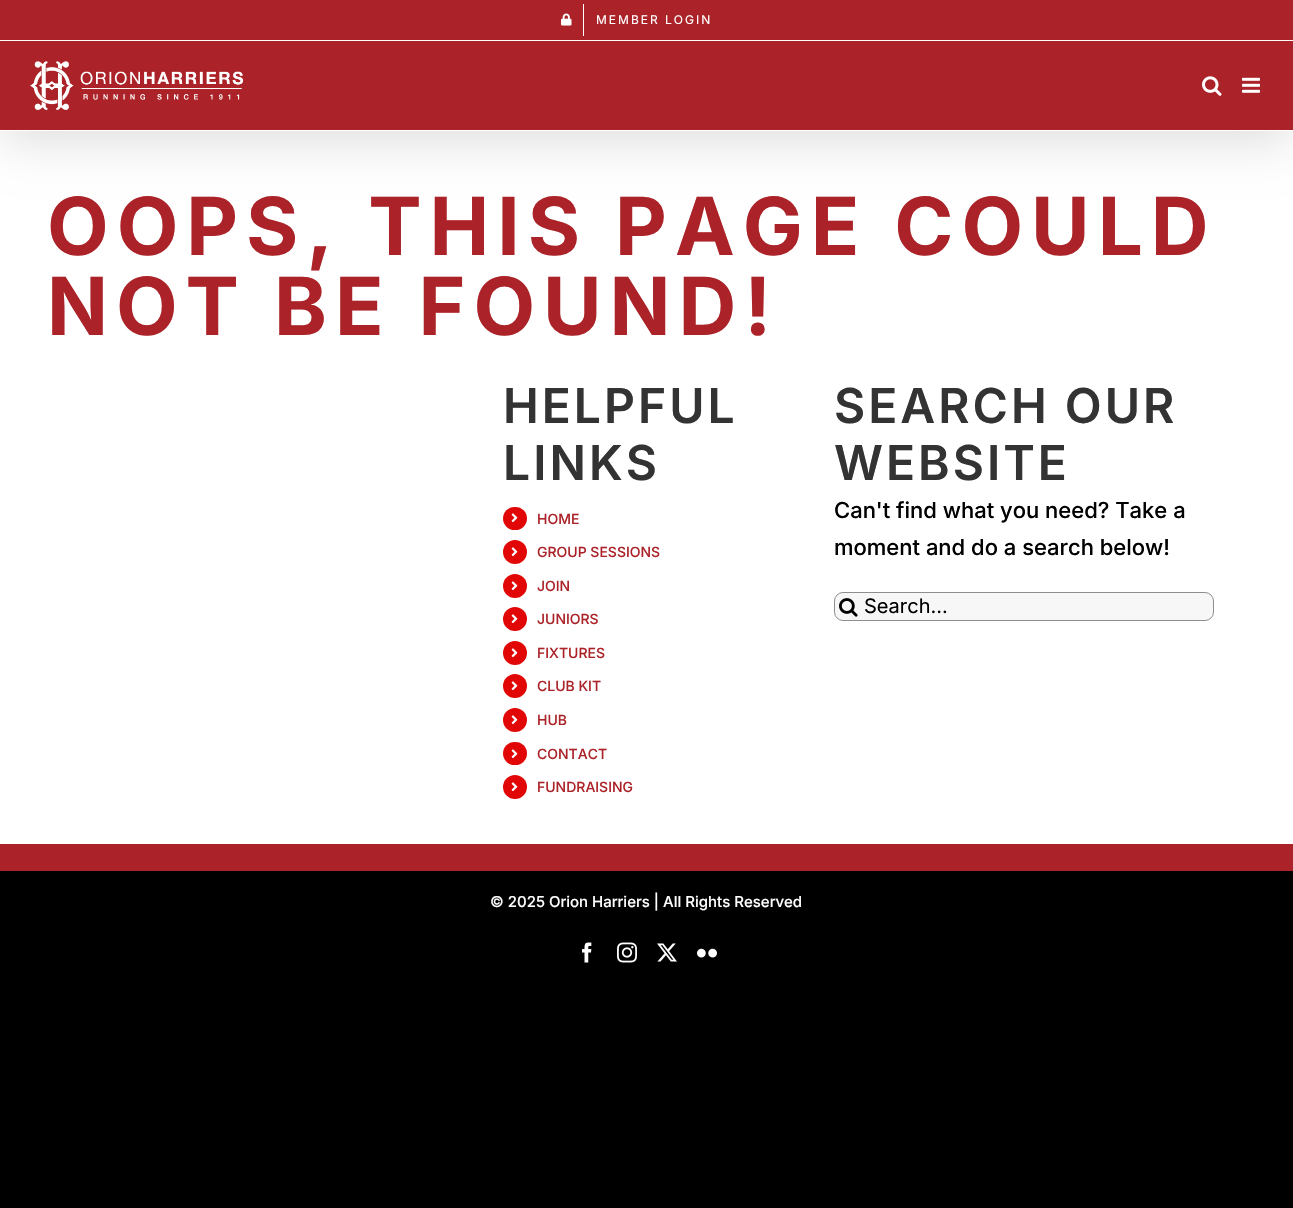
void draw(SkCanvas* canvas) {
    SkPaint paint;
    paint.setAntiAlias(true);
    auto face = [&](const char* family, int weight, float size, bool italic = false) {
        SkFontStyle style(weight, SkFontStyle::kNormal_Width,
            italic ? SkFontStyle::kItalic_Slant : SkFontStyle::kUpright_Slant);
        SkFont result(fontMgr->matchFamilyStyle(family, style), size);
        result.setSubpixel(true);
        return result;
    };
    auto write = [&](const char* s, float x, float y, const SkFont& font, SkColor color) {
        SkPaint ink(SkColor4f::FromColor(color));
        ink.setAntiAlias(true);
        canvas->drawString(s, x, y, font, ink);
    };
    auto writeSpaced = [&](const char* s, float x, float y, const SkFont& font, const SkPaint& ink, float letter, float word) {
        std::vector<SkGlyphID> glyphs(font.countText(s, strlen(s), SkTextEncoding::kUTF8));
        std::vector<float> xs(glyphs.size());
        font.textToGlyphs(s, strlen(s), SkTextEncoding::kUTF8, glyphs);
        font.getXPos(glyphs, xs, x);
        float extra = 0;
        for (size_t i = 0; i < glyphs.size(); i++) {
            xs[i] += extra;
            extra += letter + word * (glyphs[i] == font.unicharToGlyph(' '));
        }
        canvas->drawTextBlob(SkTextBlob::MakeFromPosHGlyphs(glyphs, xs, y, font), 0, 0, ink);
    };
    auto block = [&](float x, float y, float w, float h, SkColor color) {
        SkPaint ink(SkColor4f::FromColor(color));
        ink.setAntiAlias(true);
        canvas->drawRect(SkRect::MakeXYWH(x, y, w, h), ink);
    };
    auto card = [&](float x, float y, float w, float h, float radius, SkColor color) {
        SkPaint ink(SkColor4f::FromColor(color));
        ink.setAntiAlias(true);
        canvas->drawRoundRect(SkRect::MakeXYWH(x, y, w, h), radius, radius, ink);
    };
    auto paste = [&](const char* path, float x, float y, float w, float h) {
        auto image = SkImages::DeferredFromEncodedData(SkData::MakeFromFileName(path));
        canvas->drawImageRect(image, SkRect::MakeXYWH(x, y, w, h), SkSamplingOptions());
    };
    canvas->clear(SK_ColorBLACK);
    block(0, 131, 1293, 713, SK_ColorWHITE);
    paint.setColor(SkColorSetARGB(36, 0, 0, 0));
    paint.setMaskFilter(SkMaskFilter::MakeBlur(kNormal_SkBlurStyle, 25));
    canvas->drawRect(SkRect::MakeXYWH(2, 12, 1289, 127), paint);
    paint.setMaskFilter(nullptr);
    block(0, 0, 1293, 40, SkColorSetRGB(171, 35, 40));
    block(0, 40, 1293, 1, SK_ColorWHITE);
    block(583, 4, 1, 32, SK_ColorWHITE);
    paste("pic1.png", 561, 13, 11, 13);
    auto kFont1 = face("Inter", 400, 12);
    paint.setColor(SK_ColorWHITE);
    writeSpaced("MEMBER LOGIN", 596, 24, kFont1, paint, 2, 0);
    block(0, 41, 1293, 89, SkColorSetRGB(171, 35, 40));
    block(0, 130, 1293, 1, SK_ColorWHITE);
    paste("pic2.png", 30, 61, 213, 49);
    paste("pic3.png", 1202, 76, 20, 20);
    paste("pic4.png", 1242, 77, 18, 16);
    auto kFont2 = face("Inter", 700, 80);
    paint.setColor(SkColorSetRGB(171, 35, 40));
    writeSpaced("OOPS, THIS PAGE COULD", 47, 255, kFont2, paint, 8, 0);
    writeSpaced("NOT BE FOUND!", 47, 335, kFont2, paint, 8, 0);
    auto kFont3 = face("Inter", 600, 48);
    paint.setColor(SkColorSetRGB(51, 51, 51));
    writeSpaced("HELPFUL", 503, 423, kFont3, paint, 3, 0);
    writeSpaced("LINKS", 503, 480, kFont3, paint, 3, 0);
    card(503, 507, 24, 23, 11.5f, SkColorSetRGB(225, 7, 7));
    paste("pic5.png", 511, 513, 7, 10);
    auto kFont4 = face("Inter", 500, 14);
    write("HOME", 537, 524, kFont4, SkColorSetRGB(171, 35, 40));
    paint.setColor(SkColorSetRGB(225, 7, 7));
    canvas->drawCircle(515, 552, 12, paint);
    paste("pic5.png", 511, 547, 7, 10);
    write("GROUP SESSIONS", 537, 557, kFont4, SkColorSetRGB(171, 35, 40));
    canvas->drawCircle(515, 586, 12, paint);
    paste("pic5.png", 511, 581, 7, 10);
    write("JOIN", 537, 591, kFont4, SkColorSetRGB(171, 35, 40));
    canvas->drawCircle(515, 619, 12, paint);
    paste("pic5.png", 511, 614, 7, 10);
    write("JUNIORS", 537, 624, kFont4, SkColorSetRGB(171, 35, 40));
    canvas->drawCircle(515, 653, 12, paint);
    paste("pic5.png", 511, 648, 7, 10);
    write("FIXTURES", 537, 658, kFont4, SkColorSetRGB(171, 35, 40));
    canvas->drawCircle(515, 686, 12, paint);
    paste("pic5.png", 511, 681, 7, 10);
    write("CLUB KIT", 537, 691, kFont4, SkColorSetRGB(171, 35, 40));
    canvas->drawCircle(515, 720, 12, paint);
    paste("pic5.png", 511, 715, 7, 10);
    write("HUB", 537, 725, kFont4, SkColorSetRGB(171, 35, 40));
    card(503, 742, 24, 23, 11.5f, SkColorSetRGB(225, 7, 7));
    paste("pic5.png", 511, 749, 7, 10);
    write("CONTACT", 537, 759, kFont4, SkColorSetRGB(171, 35, 40));
    canvas->drawCircle(515, 787, 12, paint);
    paste("pic5.png", 511, 782, 7, 10);
    write("FUNDRAISING", 537, 792, kFont4, SkColorSetRGB(171, 35, 40));
    paint.setColor(SkColorSetRGB(51, 51, 51));
    writeSpaced("SEARCH OUR", 834, 423, kFont3, paint, 3, 0);
    writeSpaced("WEBSITE", 834, 480, kFont3, paint, 3, 0);
    auto kFont5 = face("Inter", 500, 22);
    write("Can't find what you need? Take a", 834, 518, kFont5, SK_ColorBLACK);
    write("moment and do a search below!", 834, 555, kFont5, SK_ColorBLACK);
    paint.setColor(SkColorSetRGB(247, 247, 247));
    canvas->drawRoundRect(SkRect::MakeXYWH(834.5f, 592.5f, 379, 28), 8.5f, 8.5f, paint);
    paint.setStyle(SkPaint::kStroke_Style);
    paint.setStrokeWidth(1);
    paint.setColor(SkColorSetRGB(142, 142, 142));
    canvas->drawRoundRect(SkRect::MakeXYWH(834.5f, 592.5f, 379, 28), 8.5f, 8.5f, paint);
    paste("pic6.png", 839, 598, 19, 19);
    auto kFont6 = face("Inter", 400, 20);
    write("Search...", 864, 613, kFont6, SK_ColorBLACK);
    block(0, 844, 1293, 27, SkColorSetRGB(171, 35, 40));
    auto kFont7 = face("Inter", 500, 15);
    write("© 2025 Orion Harriers | All Rights Reserved", 490, 907, kFont7, SK_ColorWHITE);
    paste("pic7.png", 582, 942, 10, 21);
    paste("pic8.png", 617, 942, 20, 21);
    paste("pic9.png", 657, 943, 20, 19);
    paste("pic10.png", 697, 948, 20, 10);
}
